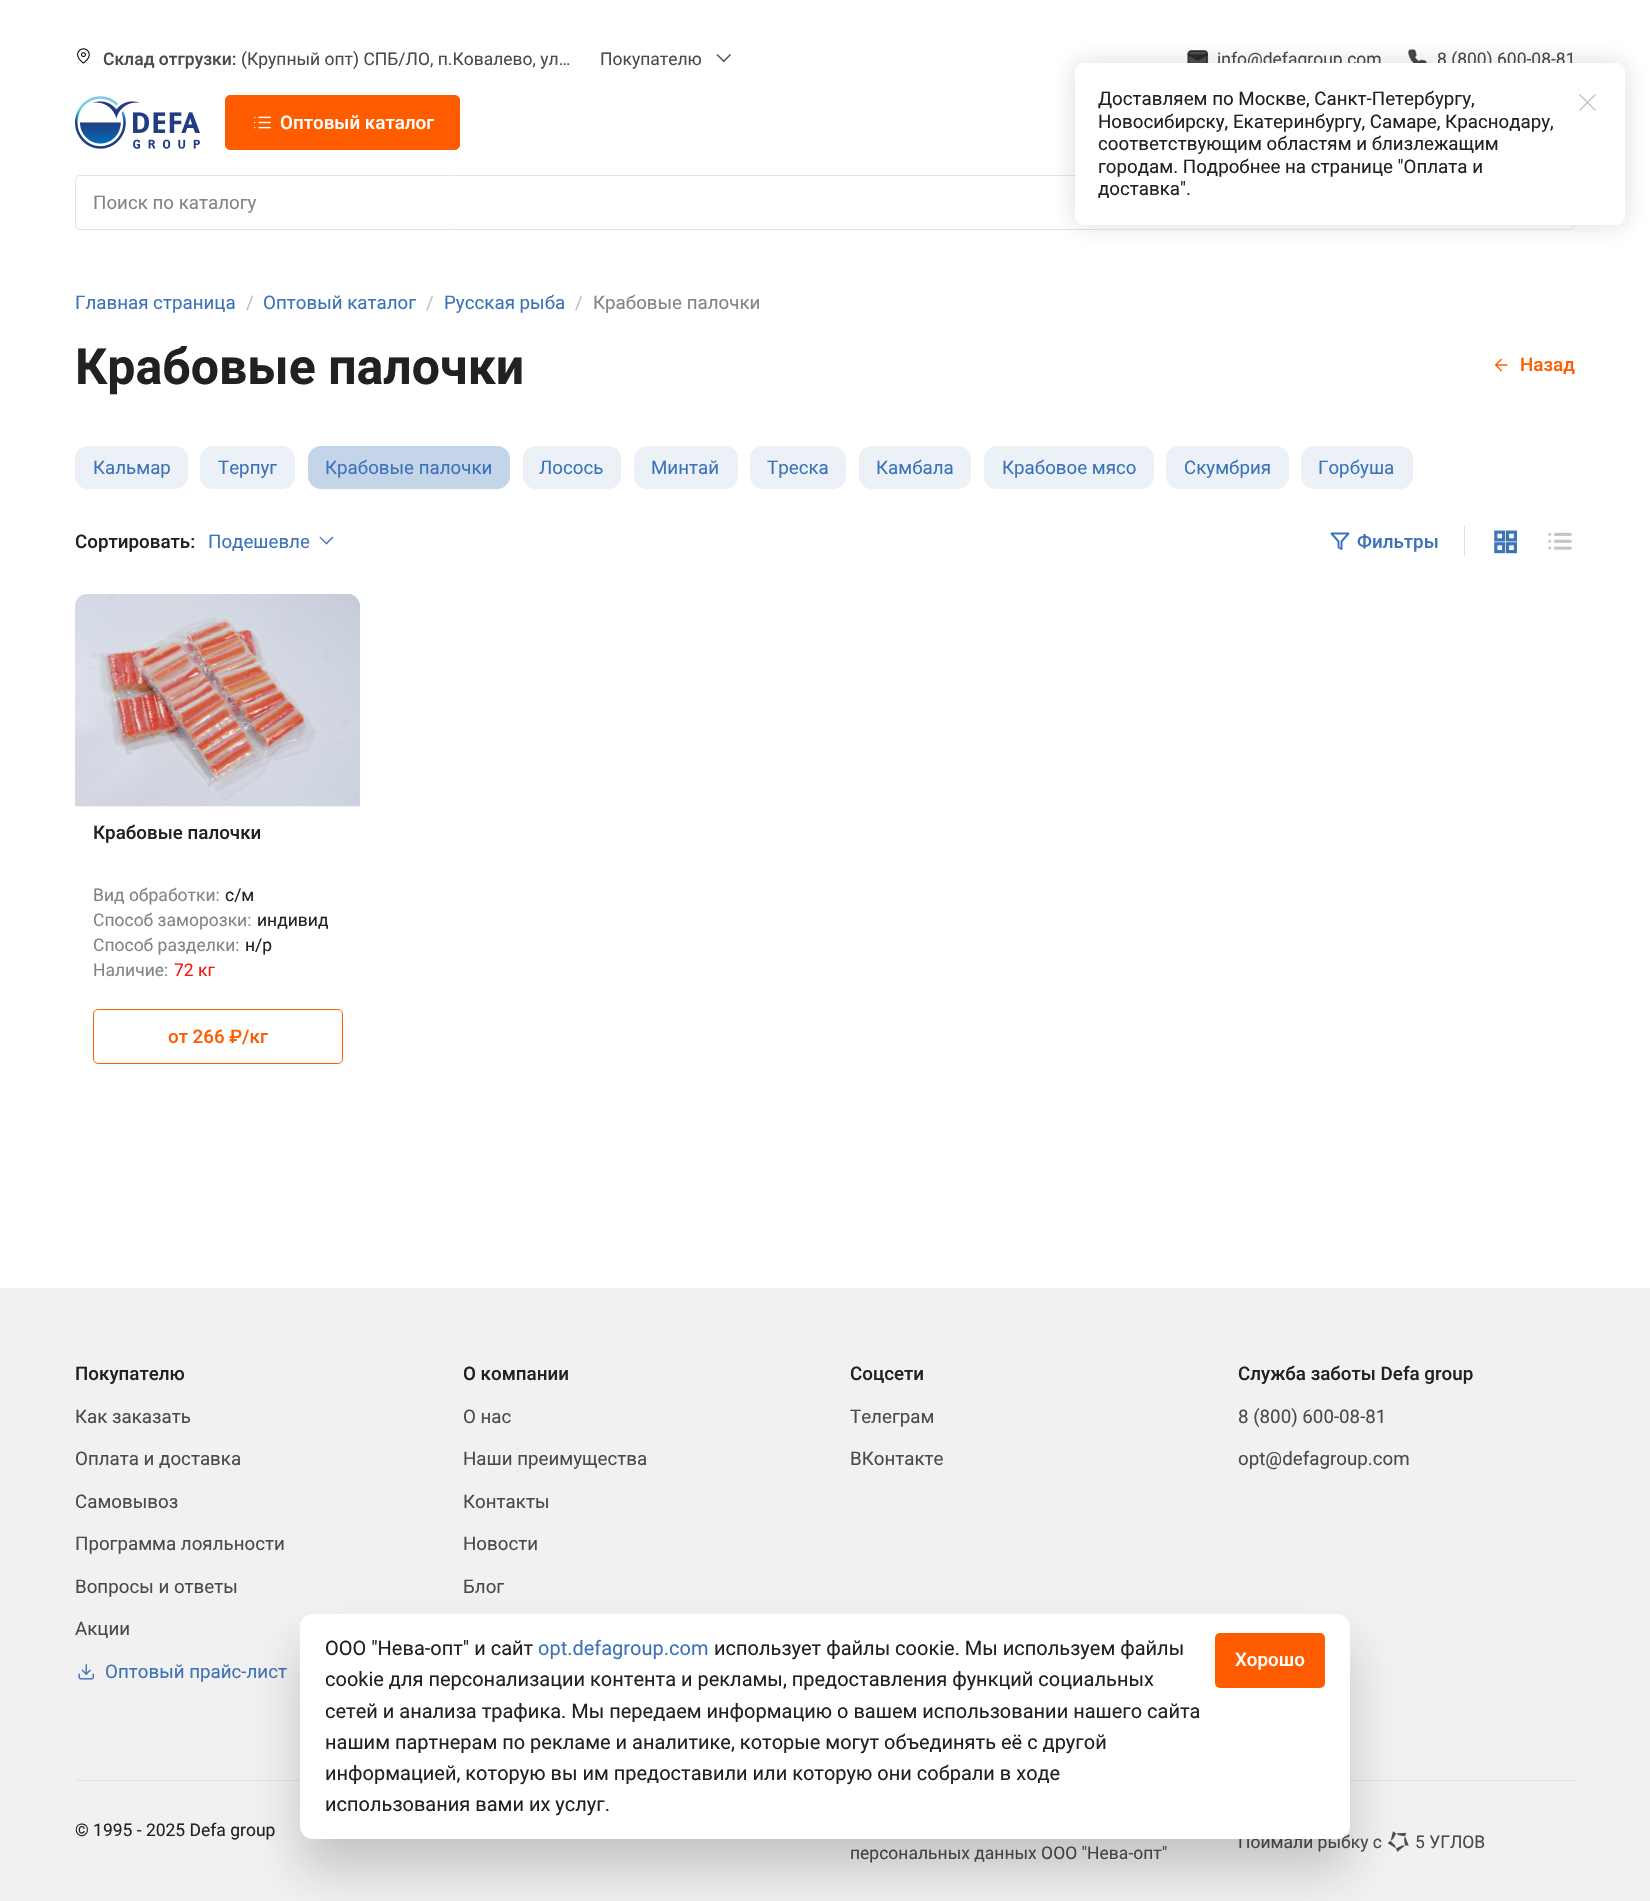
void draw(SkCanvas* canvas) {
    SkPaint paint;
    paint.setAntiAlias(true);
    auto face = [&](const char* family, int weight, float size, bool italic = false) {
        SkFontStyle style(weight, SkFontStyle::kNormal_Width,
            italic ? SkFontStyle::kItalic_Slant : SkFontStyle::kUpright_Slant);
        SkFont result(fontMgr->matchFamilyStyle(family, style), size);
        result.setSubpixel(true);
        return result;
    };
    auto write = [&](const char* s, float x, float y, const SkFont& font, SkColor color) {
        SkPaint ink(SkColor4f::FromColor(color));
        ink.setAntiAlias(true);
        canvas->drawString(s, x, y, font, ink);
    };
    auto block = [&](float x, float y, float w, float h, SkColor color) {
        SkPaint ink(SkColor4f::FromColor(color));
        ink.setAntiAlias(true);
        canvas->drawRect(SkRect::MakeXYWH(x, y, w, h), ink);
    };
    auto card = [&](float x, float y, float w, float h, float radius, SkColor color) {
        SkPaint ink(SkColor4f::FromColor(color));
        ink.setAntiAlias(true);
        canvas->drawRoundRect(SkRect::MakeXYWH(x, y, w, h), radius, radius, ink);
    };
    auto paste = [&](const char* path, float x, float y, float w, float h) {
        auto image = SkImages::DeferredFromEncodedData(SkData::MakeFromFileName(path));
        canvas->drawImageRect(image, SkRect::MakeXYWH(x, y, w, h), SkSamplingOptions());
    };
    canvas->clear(SK_ColorWHITE);
    paste("pic1.png", 77, 48, 13, 16);
    auto kFont1 = face("Roboto", 500, 17.5f);
    write("Склад отгрузки:", 103, 65, kFont1, SkColorSetRGB(75, 74, 74));
    auto kFont2 = face("Roboto", 400, 17.5f);
    write("(Крупный опт) СПБ/ЛО, п.Ковалево, ул…", 241, 65, kFont2, SkColorSetRGB(75, 74, 74));
    write("Покупателю", 600, 65, kFont2, SkColorSetRGB(75, 74, 74));
    paint.setColor(SkColorSetRGB(77, 77, 77));
    canvas->drawPath(SkPathBuilder().moveTo(717.5f, 54).lineTo(724.5f, 61).lineTo(723.5f, 62).lineTo(716.5f, 55).close().detach(), paint);
    paint.setColor(SkColorSetARGB(204, 33, 33, 33));
    canvas->drawPath(SkPathBuilder().moveTo(723, 61).lineTo(730, 54).lineTo(731, 55).lineTo(724, 62).close().detach(), paint);
    paste("pic2.png", 1187, 50, 22, 13);
    write("info@defagroup.com", 1217, 65, kFont2, SkColorSetRGB(75, 74, 74));
    paste("pic3.png", 1408, 49, 19, 14);
    write("8 (800) 600-08-81", 1437, 65, kFont2, SkColorSetRGB(75, 74, 74));
    paste("pic4.png", 75, 96, 125, 53);
    paint.setColor(SkColorSetRGB(255, 92, 0));
    canvas->drawRoundRect(SkRect::MakeXYWH(225.5f, 95.5f, 234, 54), 4.5f, 4.5f, paint);
    paint.setStyle(SkPaint::kStroke_Style);
    paint.setStrokeWidth(1);
    canvas->drawRoundRect(SkRect::MakeXYWH(225.5f, 95.5f, 234, 54), 4.5f, 4.5f, paint);
    paste("pic5.png", 254, 116, 17, 13);
    auto kFont3 = face("Roboto", 500, 18.75f);
    write("Оптовый каталог", 280, 129, kFont3, SK_ColorWHITE);
    paint.setColor(SkColorSetRGB(226, 226, 226));
    canvas->drawRoundRect(SkRect::MakeXYWH(75.5f, 175.5f, 1499, 54), 4.5f, 4.5f, paint);
    auto kFont4 = face("Roboto", 400, 18.75f);
    write("Поиск по каталогу", 93, 209, kFont4, SkColorSetRGB(132, 132, 132));
    paint.setStyle(SkPaint::kFill_Style);
    paint.setColor(SkColorSetARGB(38, 17, 17, 17));
    paint.setMaskFilter(SkMaskFilter::MakeBlur(kNormal_SkBlurStyle, 12.5f));
    canvas->drawRoundRect(SkRect::MakeXYWH(1075, 63, 550, 162), 8, 8, paint);
    paint.setMaskFilter(nullptr);
    card(1075, 63, 550, 162, 8, SK_ColorWHITE);
    write("Доставляем по Москве, Санкт-Петербургу,", 1098, 105, kFont4, SkColorSetRGB(33, 33, 33));
    write("Новосибирску, Екатеринбургу, Самаре, Краснодару,", 1098, 128, kFont4, SkColorSetRGB(33, 33, 33));
    write("соответствующим областям и близлежащим", 1098, 150, kFont4, SkColorSetRGB(33, 33, 33));
    write("городам. Подробнее на странице \"Оплата и", 1098, 173, kFont4, SkColorSetRGB(33, 33, 33));
    write("доставка\".", 1098, 195, kFont4, SkColorSetRGB(33, 33, 33));
    paint.setColor(SkColorSetRGB(196, 196, 196));
    canvas->drawPath(SkPathBuilder().moveTo(1580, 94).lineTo(1596, 110).lineTo(1595, 111).lineTo(1579, 95).close().detach(), paint);
    canvas->drawPath(SkPathBuilder().moveTo(1579, 110).lineTo(1595, 94).lineTo(1596, 95).lineTo(1580, 111).close().detach(), paint);
    write("Главная страница", 75, 309, kFont4, SkColorSetRGB(59, 115, 184));
    write("/", 246, 309, kFont4, SkColorSetRGB(194, 194, 194));
    write("Оптовый каталог", 263, 309, kFont4, SkColorSetRGB(59, 115, 184));
    write("/", 426, 309, kFont4, SkColorSetRGB(194, 194, 194));
    write("Русская рыба", 444, 309, kFont4, SkColorSetRGB(59, 115, 184));
    write("/", 575, 309, kFont4, SkColorSetRGB(194, 194, 194));
    write("Крабовые палочки", 593, 309, kFont4, SkColorSetRGB(132, 132, 132));
    auto kFont5 = face("Roboto", 700, 50);
    write("Крабовые палочки", 75, 384, kFont5, SkColorSetRGB(33, 33, 33));
    paste("pic6.png", 1495, 358, 13, 14);
    write("Назад", 1520, 371, kFont3, SkColorSetRGB(255, 92, 0));
    card(75, 446, 113, 43, 13, SkColorSetRGB(236, 241, 248));
    write("Кальмар", 93, 474, kFont4, SkColorSetRGB(59, 115, 184));
    card(200, 446, 95, 43, 13, SkColorSetRGB(236, 241, 248));
    write("Терпуг", 218, 474, kFont4, SkColorSetRGB(59, 115, 184));
    card(308, 446, 202, 43, 13, SkColorSetRGB(196, 213, 234));
    write("Крабовые палочки", 325, 474, kFont4, SkColorSetRGB(59, 115, 184));
    card(523, 446, 98, 43, 13, SkColorSetRGB(236, 241, 248));
    write("Лосось", 539, 474, kFont4, SkColorSetRGB(59, 115, 184));
    card(634, 446, 104, 43, 13, SkColorSetRGB(236, 241, 248));
    write("Минтай", 651, 474, kFont4, SkColorSetRGB(59, 115, 184));
    card(750, 446, 96, 43, 13, SkColorSetRGB(236, 241, 248));
    write("Треска", 767, 474, kFont4, SkColorSetRGB(59, 115, 184));
    card(859, 446, 112, 43, 13, SkColorSetRGB(236, 241, 248));
    write("Камбала", 876, 474, kFont4, SkColorSetRGB(59, 115, 184));
    card(984, 446, 170, 43, 13, SkColorSetRGB(236, 241, 248));
    write("Крабовое мясо", 1002, 474, kFont4, SkColorSetRGB(59, 115, 184));
    card(1166, 446, 123, 43, 13, SkColorSetRGB(236, 241, 248));
    write("Скумбрия", 1184, 474, kFont4, SkColorSetRGB(59, 115, 184));
    card(1301, 446, 112, 43, 13, SkColorSetRGB(236, 241, 248));
    write("Горбуша", 1318, 474, kFont4, SkColorSetRGB(59, 115, 184));
    write("Сортировать:", 75, 548, kFont3, SkColorSetRGB(33, 33, 33));
    write("Подешевле", 208, 548, kFont4, SkColorSetRGB(59, 115, 184));
    paint.setColor(SkColorSetRGB(59, 115, 184));
    canvas->drawPath(SkPathBuilder().moveTo(320, 536.5f).lineTo(327.5f, 543.5f).lineTo(326.5f, 544.5f).lineTo(319.5f, 537.5f).close().detach(), paint);
    canvas->drawPath(SkPathBuilder().moveTo(325.5f, 543.5f).lineTo(332.5f, 536.5f).lineTo(333.5f, 537.5f).lineTo(326.5f, 544.5f).close().detach(), paint);
    paint.setStyle(SkPaint::kStroke_Style);
    paint.setStrokeWidth(1.9f);
    paint.setStrokeCap(SkPaint::kRound_Cap);
    paint.setStrokeJoin(SkPaint::kRound_Join);
    canvas->drawPath(SkPathBuilder().moveTo(1348.5f, 533.5f).lineTo(1331.5f, 533.5f).lineTo(1338.5f, 541.5f).lineTo(1338.5f, 547.5f).lineTo(1341.5f, 549).lineTo(1341.5f, 541.5f).close().detach(), paint);
    write("Фильтры", 1357, 548, kFont3, SkColorSetRGB(59, 115, 184));
    block(1464, 526, 1, 30, SkColorSetRGB(226, 226, 226));
    paste("pic7.png", 1494, 530, 23, 24);
    paste("pic8.png", 1548, 532, 24, 18);
    paste("pic9.png", 75, 594, 285, 213);
    write("Крабовые палочки", 93, 839, kFont3, SkColorSetRGB(33, 33, 33));
    write("Вид обработки:", 93, 901, kFont2, SkColorSetRGB(132, 132, 132));
    write("с/м", 225, 901, kFont2, SkColorSetRGB(33, 33, 33));
    write("Способ заморозки:", 93, 926, kFont2, SkColorSetRGB(132, 132, 132));
    write("индивид", 257, 926, kFont2, SkColorSetRGB(33, 33, 33));
    write("Способ разделки:", 93, 951, kFont2, SkColorSetRGB(132, 132, 132));
    write("н/р", 245, 951, kFont2, SkColorSetRGB(33, 33, 33));
    write("Наличие:", 93, 976, kFont2, SkColorSetRGB(132, 132, 132));
    write("72 кг", 174, 976, kFont2, SkColorSetRGB(255, 18, 18));
    paint.setStrokeWidth(1);
    paint.setStrokeCap(SkPaint::kButt_Cap);
    paint.setStrokeJoin(SkPaint::kMiter_Join);
    paint.setColor(SkColorSetRGB(255, 92, 0));
    canvas->drawRoundRect(SkRect::MakeXYWH(93.5f, 1009.5f, 249, 54), 4.5f, 4.5f, paint);
    write("от 266 ₽/кг", 168, 1043, kFont3, SkColorSetRGB(255, 92, 0));
    block(0, 1288, 1650, 613, SkColorSetRGB(242, 240, 240));
    write("Покупателю", 75, 1380, kFont3, SkColorSetRGB(33, 33, 33));
    write("Как заказать", 75, 1423, kFont4, SkColorSetRGB(75, 74, 74));
    write("Оплата и доставка", 75, 1465, kFont4, SkColorSetRGB(75, 74, 74));
    write("Самовывоз", 75, 1508, kFont4, SkColorSetRGB(75, 74, 74));
    write("Программа лояльности", 75, 1550, kFont4, SkColorSetRGB(75, 74, 74));
    write("Вопросы и ответы", 75, 1593, kFont4, SkColorSetRGB(75, 74, 74));
    write("Акции", 75, 1635, kFont4, SkColorSetRGB(75, 74, 74));
    paste("pic10.png", 78, 1664, 16, 16);
    write("Оптовый прайс-лист", 105, 1678, kFont4, SkColorSetRGB(59, 115, 184));
    write("О компании", 463, 1380, kFont3, SkColorSetRGB(33, 33, 33));
    write("О нас", 463, 1423, kFont4, SkColorSetRGB(75, 74, 74));
    write("Наши преимущества", 463, 1465, kFont4, SkColorSetRGB(75, 74, 74));
    write("Контакты", 463, 1508, kFont4, SkColorSetRGB(75, 74, 74));
    write("Новости", 463, 1550, kFont4, SkColorSetRGB(75, 74, 74));
    write("Блог", 463, 1593, kFont4, SkColorSetRGB(75, 74, 74));
    write("Соцсети", 850, 1380, kFont3, SkColorSetRGB(33, 33, 33));
    write("Телеграм", 850, 1423, kFont4, SkColorSetRGB(75, 74, 74));
    write("ВКонтакте", 850, 1465, kFont4, SkColorSetRGB(75, 74, 74));
    write("Служба заботы Defa group", 1238, 1380, kFont3, SkColorSetRGB(33, 33, 33));
    write("8 (800) 600-08-81", 1238, 1423, kFont4, SkColorSetRGB(75, 74, 74));
    write("opt@defagroup.com", 1238, 1465, kFont4, SkColorSetRGB(75, 74, 74));
    block(75, 1780, 1500, 1, SkColorSetRGB(226, 226, 226));
    write("© 1995 - 2025 Defa group", 75, 1836, kFont2, SkColorSetRGB(33, 33, 33));
    write("Поймали рыбку с", 1238, 1848, kFont2, SkColorSetRGB(75, 74, 74));
    paste("pic11.png", 1388, 1831, 21, 21);
    write("5 УГЛОВ", 1415, 1848, kFont2, SkColorSetRGB(75, 74, 74));
    write("персональных данных ООО \"Нева-опт\"", 850, 1859, kFont2, SkColorSetRGB(75, 74, 74));
    paint.setStyle(SkPaint::kFill_Style);
    paint.setColor(SkColorSetARGB(51, 17, 17, 17));
    paint.setMaskFilter(SkMaskFilter::MakeBlur(kNormal_SkBlurStyle, 25));
    canvas->drawRoundRect(SkRect::MakeXYWH(300, 1645, 1050, 225), 13, 13, paint);
    paint.setMaskFilter(nullptr);
    card(300, 1614, 1050, 225, 13, SK_ColorWHITE);
    auto kFont6 = face("Roboto", 400, 20);
    write("ООО \"Нева-опт\" и сайт", 325, 1655, kFont6, SkColorSetRGB(33, 33, 33));
    write("opt.defagroup.com", 538, 1655, kFont6, SkColorSetRGB(59, 115, 184));
    write("использует файлы соокіе. Мы используем файлы", 714, 1655, kFont6, SkColorSetRGB(33, 33, 33));
    write("cookie для персонализации контента и рекламы, предоставления функций социальных", 325, 1686, kFont6, SkColorSetRGB(33, 33, 33));
    write("сетей и анализа трафика. Мы передаем информацию о вашем использовании нашего сайта", 325, 1718, kFont6, SkColorSetRGB(33, 33, 33));
    write("нашим партнерам по рекламе и аналитике, которые могут объединять её с другой", 325, 1749, kFont6, SkColorSetRGB(33, 33, 33));
    write("информацией, которую вы им предоставили или которую они собрали в ходе", 325, 1780, kFont6, SkColorSetRGB(33, 33, 33));
    write("использования вами их услуг.", 325, 1811, kFont6, SkColorSetRGB(33, 33, 33));
    card(1215, 1633, 110, 55, 5, SkColorSetRGB(255, 92, 0));
    write("Хорошо", 1235, 1666, kFont3, SK_ColorWHITE);
}
